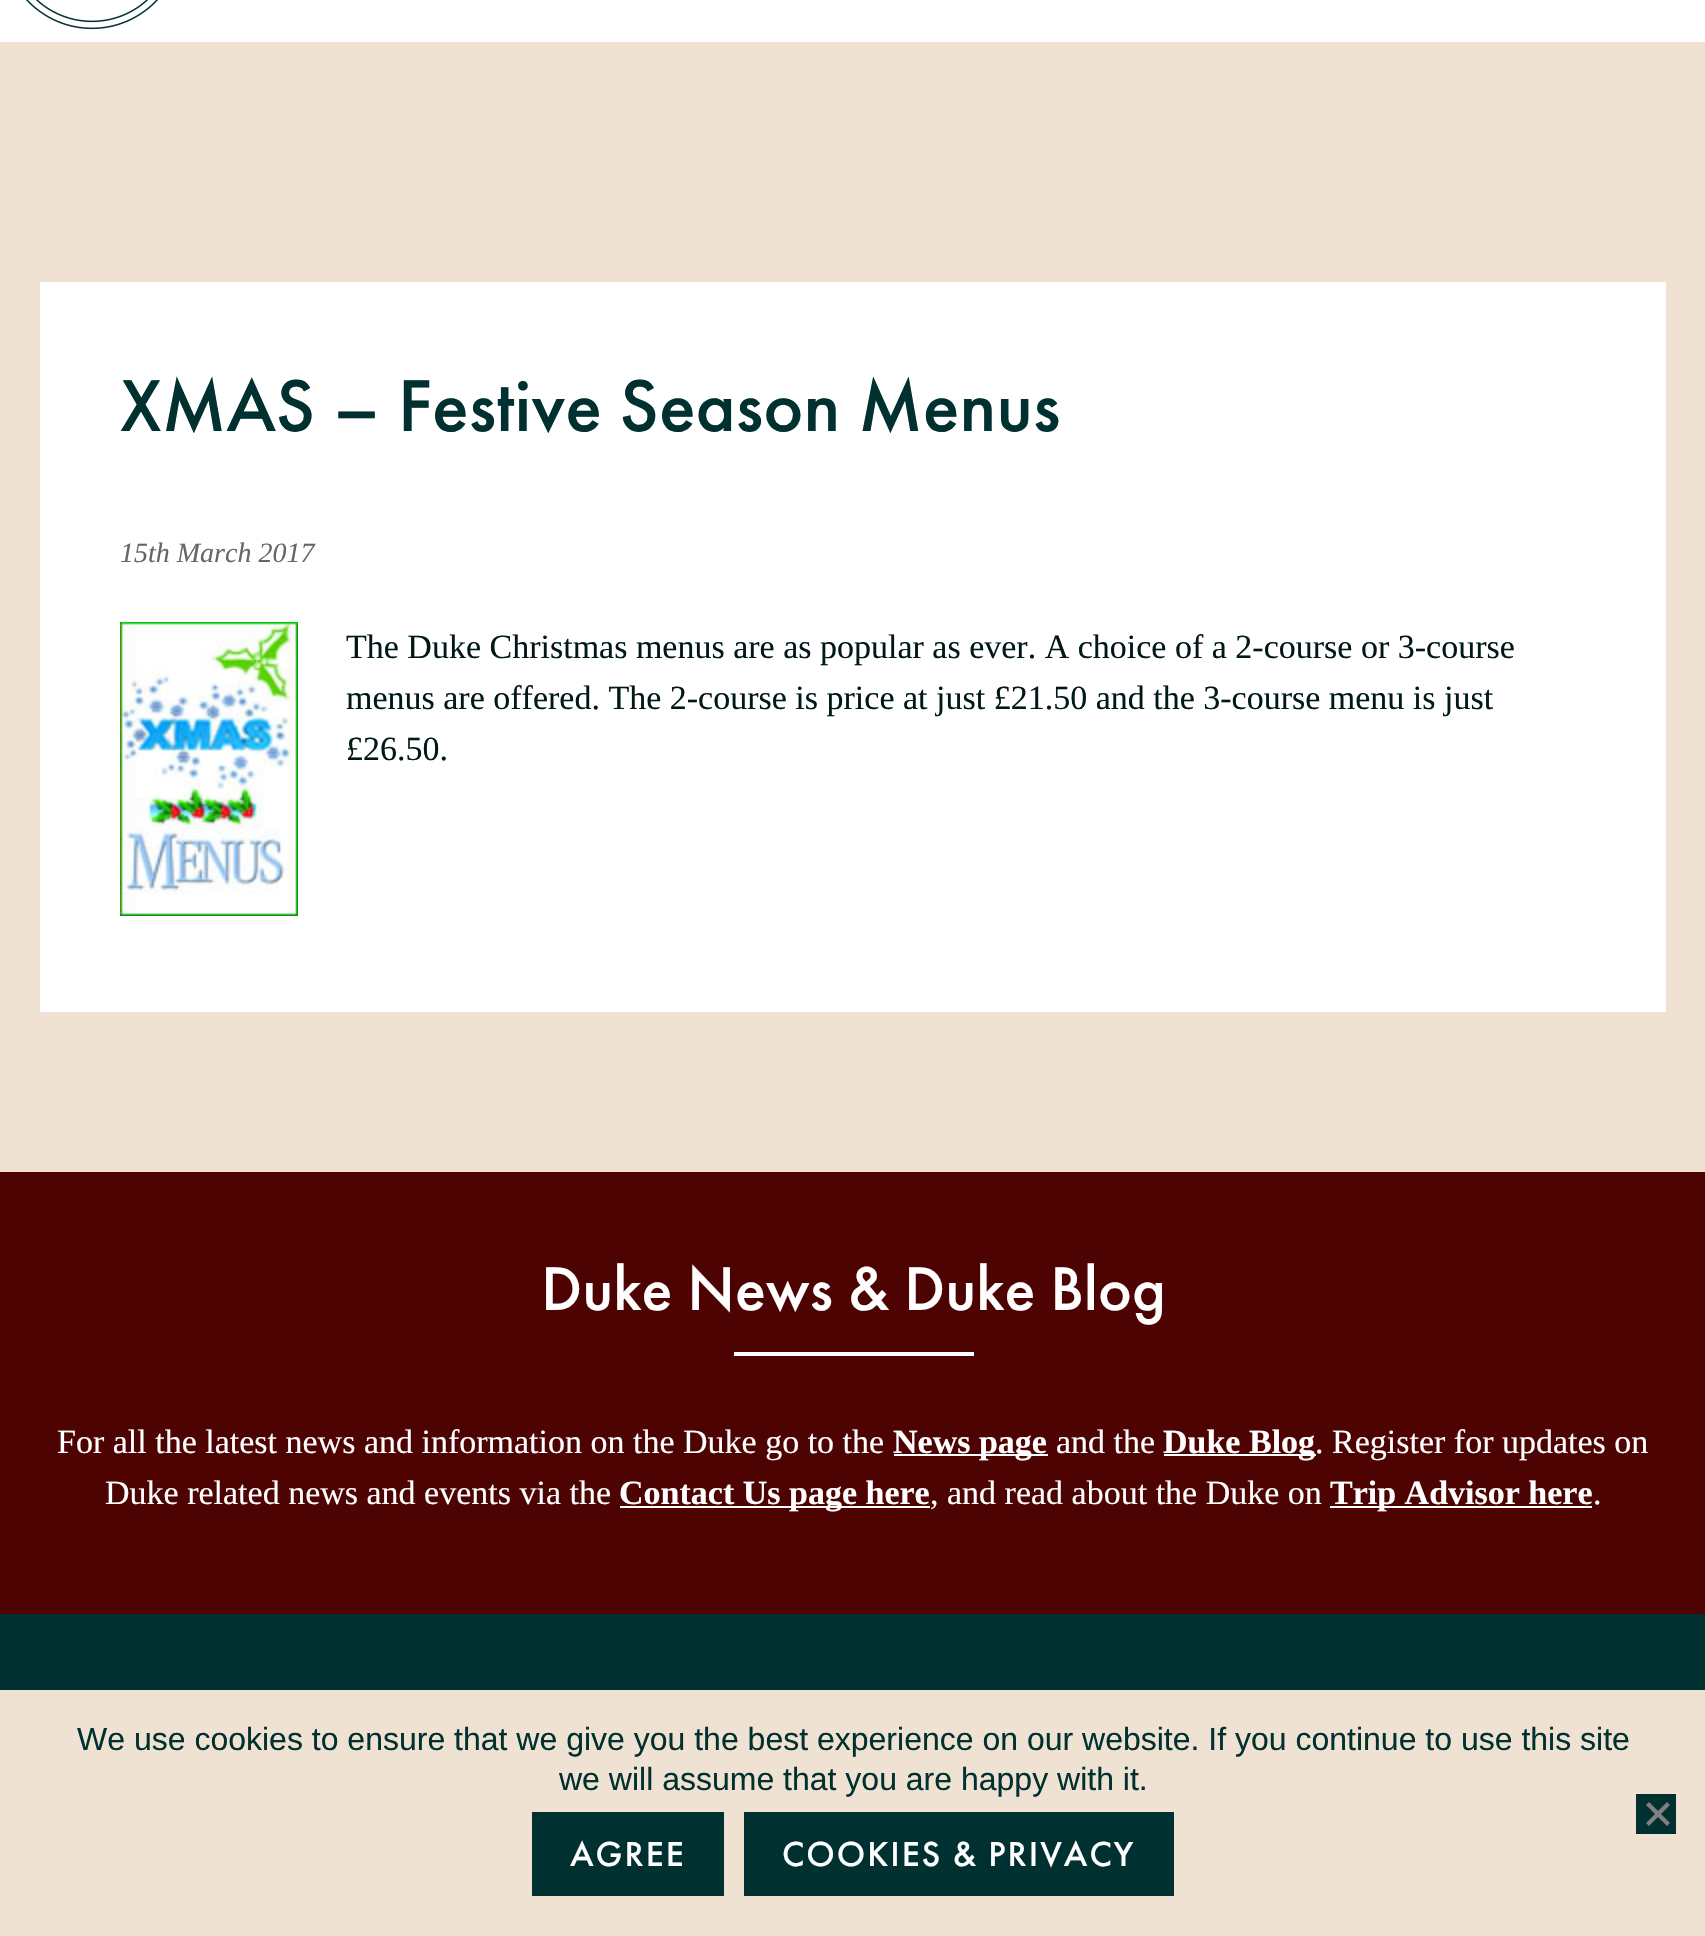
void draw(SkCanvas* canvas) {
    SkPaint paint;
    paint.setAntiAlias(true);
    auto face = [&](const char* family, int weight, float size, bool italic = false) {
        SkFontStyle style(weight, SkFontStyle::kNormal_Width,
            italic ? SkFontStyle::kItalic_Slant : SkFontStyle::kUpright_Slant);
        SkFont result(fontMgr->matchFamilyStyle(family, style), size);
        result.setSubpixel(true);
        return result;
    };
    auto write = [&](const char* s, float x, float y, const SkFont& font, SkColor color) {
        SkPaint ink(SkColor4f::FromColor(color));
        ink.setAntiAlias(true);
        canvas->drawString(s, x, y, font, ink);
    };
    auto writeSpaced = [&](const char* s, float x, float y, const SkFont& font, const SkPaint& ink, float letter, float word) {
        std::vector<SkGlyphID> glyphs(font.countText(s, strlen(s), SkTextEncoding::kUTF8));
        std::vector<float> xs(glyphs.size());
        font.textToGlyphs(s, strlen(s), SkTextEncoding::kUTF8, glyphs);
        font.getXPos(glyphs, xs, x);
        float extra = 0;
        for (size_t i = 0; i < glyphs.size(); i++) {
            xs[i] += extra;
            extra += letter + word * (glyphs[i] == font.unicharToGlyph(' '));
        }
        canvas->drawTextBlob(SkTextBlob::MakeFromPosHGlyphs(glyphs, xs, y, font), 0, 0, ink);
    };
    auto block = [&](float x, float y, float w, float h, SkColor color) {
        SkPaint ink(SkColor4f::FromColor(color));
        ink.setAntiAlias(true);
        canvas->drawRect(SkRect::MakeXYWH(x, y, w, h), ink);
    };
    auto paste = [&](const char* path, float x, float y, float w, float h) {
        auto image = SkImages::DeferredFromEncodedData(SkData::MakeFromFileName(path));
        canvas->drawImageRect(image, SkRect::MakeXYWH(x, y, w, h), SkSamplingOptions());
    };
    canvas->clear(SkColorSetRGB(239, 226, 210));
    block(0, 0, 1705, 42, SK_ColorWHITE);
    paste("pic1.png", 26, 0, 132, 30);
    block(40, 282, 1626, 730, SK_ColorWHITE);
    auto kFont1 = face("Futura PT", 500, 76);
    write("XMAS – Festive Season Menus", 120, 431, kFont1, SkColorSetRGB(0, 48, 48));
    auto kFont2 = face("Liberation Serif", 400, 28, true);
    write("15th March 2017", 120, 562, kFont2, SkColorSetRGB(102, 102, 102));
    paste("pic2.png", 120, 622, 178, 294);
    auto kFont3 = face("Liberation Serif", 400, 34);
    write("The Duke Christmas menus are as popular as ever. A choice of a 2-course or 3-course", 346, 658, kFont3, SkColorSetRGB(0, 24, 24));
    write("menus are offered. The 2-course is price at just £21.50 and the 3-course menu is just", 346, 709, kFont3, SkColorSetRGB(0, 24, 24));
    write("£26.50.", 346, 760, kFont3, SkColorSetRGB(0, 24, 24));
    block(0, 1614, 1705, 76, SkColorSetRGB(0, 48, 48));
    block(0, 1172, 1705, 442, SkColorSetRGB(77, 3, 2));
    auto kFont4 = face("Futura PT", 500, 64);
    write("Duke News & Duke Blog", 541, 1310, kFont4, SK_ColorWHITE);
    block(734, 1352, 240, 4, SK_ColorWHITE);
    write("For all the latest news and information on the Duke go to the", 57, 1453, kFont3, SK_ColorWHITE);
    block(894, 1454, 154, 2, SK_ColorWHITE);
    auto kFont5 = face("Liberation Serif", 700, 34);
    write("News page", 893, 1453, kFont5, SK_ColorWHITE);
    write("and the", 1056, 1453, kFont3, SK_ColorWHITE);
    block(1164, 1454, 152, 2, SK_ColorWHITE);
    write("Duke Blog", 1163, 1453, kFont5, SK_ColorWHITE);
    write(". Register for updates on", 1315, 1453, kFont3, SK_ColorWHITE);
    write("Duke related news and events via the", 105, 1504, kFont3, SK_ColorWHITE);
    block(620, 1506, 310, 2, SK_ColorWHITE);
    write("Contact Us page here", 619, 1504, kFont5, SK_ColorWHITE);
    write(", and read about the Duke on", 930, 1504, kFont3, SK_ColorWHITE);
    block(1330, 1506, 262, 2, SK_ColorWHITE);
    write("Trip Advisor here", 1330, 1504, kFont5, SK_ColorWHITE);
    write(".", 1593, 1504, kFont3, SK_ColorWHITE);
    auto kFont6 = face("Liberation Sans", 400, 32);
    write("We use cookies to ensure that we give you the best experience on our website. If you continue to use this site", 77, 1750, kFont6, SkColorSetRGB(0, 48, 48));
    write("we will assume that you are happy with it.", 559, 1790, kFont6, SkColorSetRGB(0, 48, 48));
    block(1636, 1794, 40, 40, SkColorSetRGB(0, 48, 48));
    paint.setColor(SkColorSetRGB(128, 128, 128));
    canvas->drawPath(SkPathBuilder().moveTo(1667, 1802).lineTo(1670, 1805).lineTo(1649, 1826).lineTo(1646, 1823).close().detach(), paint);
    canvas->drawPath(SkPathBuilder().moveTo(1646, 1805).lineTo(1649, 1802).lineTo(1670, 1823).lineTo(1667, 1826).close().detach(), paint);
    block(532, 1812, 192, 84, SkColorSetRGB(0, 48, 48));
    auto kFont7 = face("Futura PT", 500, 36);
    paint.setColor(SK_ColorWHITE);
    writeSpaced("AGREE", 570, 1866, kFont7, paint, 2, 0);
    block(744, 1812, 430, 84, SkColorSetRGB(0, 48, 48));
    writeSpaced("COOKIES & PRIVACY", 782, 1866, kFont7, paint, 2, 0);
}
